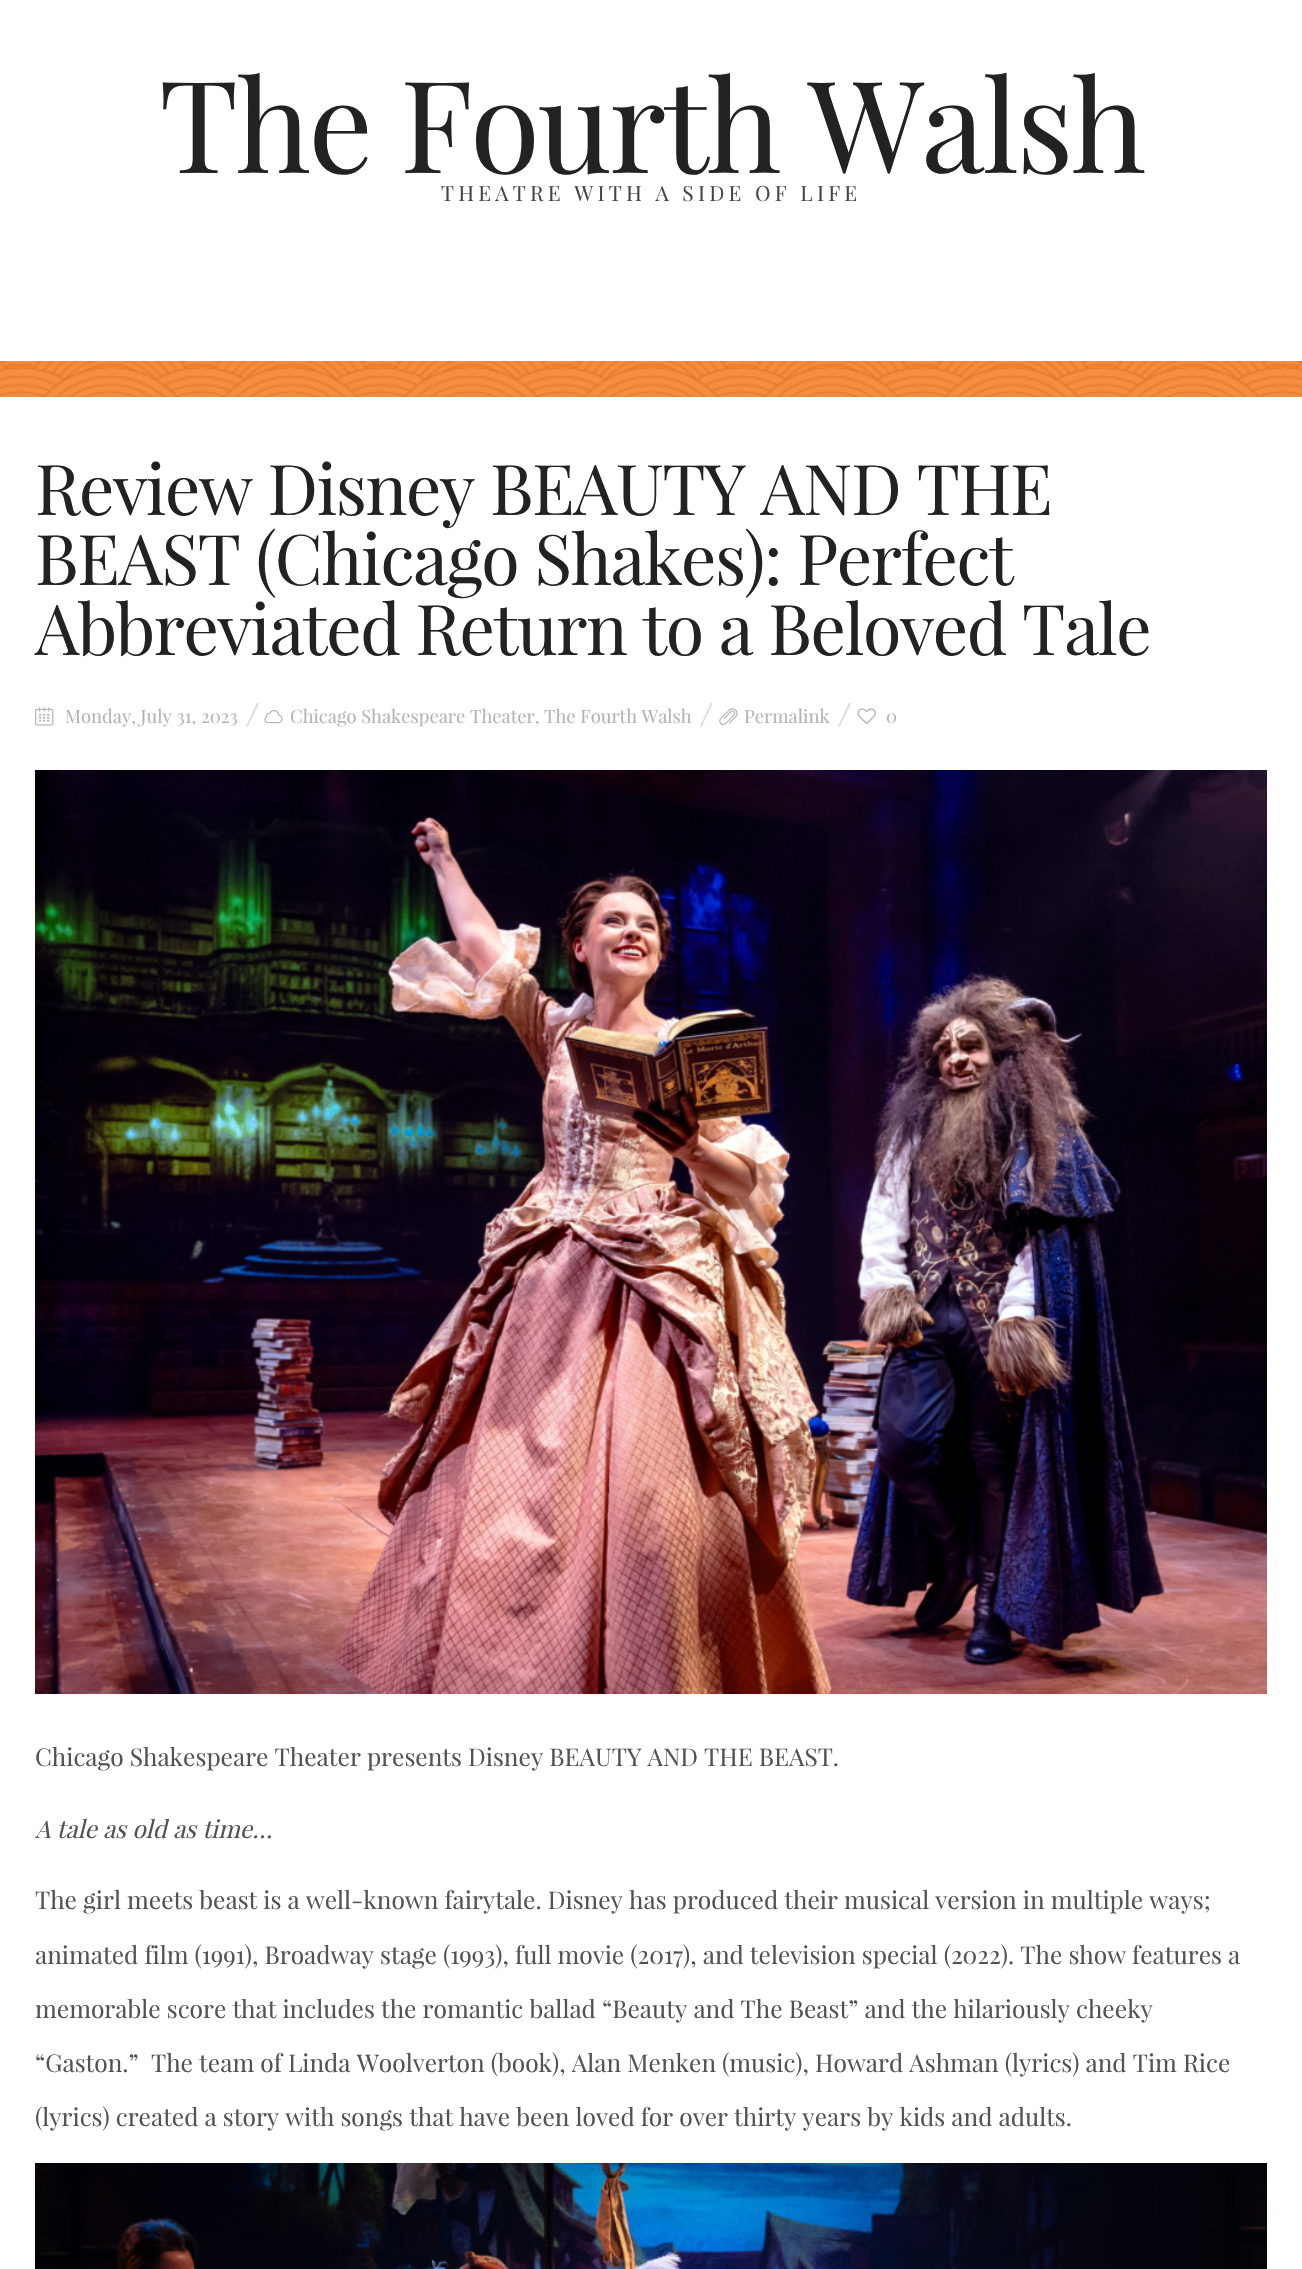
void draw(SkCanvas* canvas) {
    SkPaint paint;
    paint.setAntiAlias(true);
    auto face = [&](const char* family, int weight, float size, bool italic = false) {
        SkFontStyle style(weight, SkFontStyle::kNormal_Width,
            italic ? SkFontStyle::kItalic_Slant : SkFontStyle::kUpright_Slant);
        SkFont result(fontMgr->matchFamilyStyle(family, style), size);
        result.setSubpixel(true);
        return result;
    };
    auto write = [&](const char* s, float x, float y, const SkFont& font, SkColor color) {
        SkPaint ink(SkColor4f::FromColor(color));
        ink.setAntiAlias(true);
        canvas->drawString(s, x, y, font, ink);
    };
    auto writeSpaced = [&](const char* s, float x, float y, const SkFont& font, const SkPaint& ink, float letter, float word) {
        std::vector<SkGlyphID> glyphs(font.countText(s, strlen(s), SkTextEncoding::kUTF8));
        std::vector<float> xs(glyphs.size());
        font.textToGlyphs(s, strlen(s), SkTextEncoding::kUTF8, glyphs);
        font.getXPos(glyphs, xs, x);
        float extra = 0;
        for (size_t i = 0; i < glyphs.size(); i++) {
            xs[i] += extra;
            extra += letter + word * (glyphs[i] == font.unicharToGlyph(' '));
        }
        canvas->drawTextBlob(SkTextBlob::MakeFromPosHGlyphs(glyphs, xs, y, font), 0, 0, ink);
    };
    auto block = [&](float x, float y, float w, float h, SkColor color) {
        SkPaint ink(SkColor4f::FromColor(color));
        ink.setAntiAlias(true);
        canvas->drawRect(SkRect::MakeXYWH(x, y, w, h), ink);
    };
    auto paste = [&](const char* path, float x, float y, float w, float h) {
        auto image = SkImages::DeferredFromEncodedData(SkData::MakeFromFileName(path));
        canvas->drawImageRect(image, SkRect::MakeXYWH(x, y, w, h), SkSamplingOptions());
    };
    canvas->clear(SkColorSetRGB(242, 110, 9));
    paste("pic1.png", 0, 361, 1302, 36);
    block(0, 0, 1302, 361, SK_ColorWHITE);
    auto kFont1 = face("Playfair Display", 400, 127.75f);
    paint.setColor(SkColorSetRGB(34, 34, 34));
    writeSpaced("The Fourth Walsh", 159, 173, kFont1, paint, -2.5f, 0);
    auto kFont2 = face("Playfair Display", 400, 21);
    paint.setColor(SkColorSetRGB(68, 68, 68));
    writeSpaced("THEATRE WITH A SIDE OF LIFE", 441, 201, kFont2, paint, 4.2f, 0);
    block(0, 397, 1302, 1872, SK_ColorWHITE);
    auto kFont3 = face("Playfair Display", 400, 70);
    paint.setColor(SkColorSetRGB(34, 34, 34));
    writeSpaced("Review Disney BEAUTY AND THE", 35, 515, kFont3, paint, -1.4f, 0);
    writeSpaced("BEAST (Chicago Shakes): Perfect", 35, 585, kFont3, paint, -1.4f, 0);
    writeSpaced("Abbreviated Return to a Beloved Tale", 35, 655, kFont3, paint, -1.4f, 0);
    paste("pic2.png", 35, 707, 19, 19);
    auto kFont4 = face("Playfair Display", 400, 18.4f);
    write("Monday, July 31, 2023", 65, 723, kFont4, SkColorSetRGB(179, 179, 179));
    paint.setColor(SkColorSetRGB(221, 221, 221));
    canvas->drawPath(SkPathBuilder().moveTo(257, 702.5f).lineTo(259, 703.5f).lineTo(247.5f, 727).lineTo(246, 726.5f).close().detach(), paint);
    paste("pic3.png", 264, 710, 19, 14);
    write("Chicago Shakespeare Theater, The Fourth Walsh", 290, 723, kFont4, SkColorSetRGB(179, 179, 179));
    canvas->drawPath(SkPathBuilder().moveTo(711, 702.5f).lineTo(712.5f, 703.5f).lineTo(701.5f, 727).lineTo(700, 726.5f).close().detach(), paint);
    paste("pic4.png", 719, 708, 19, 17);
    write("Permalink", 744, 723, kFont4, SkColorSetRGB(179, 179, 179));
    canvas->drawPath(SkPathBuilder().moveTo(849, 702.5f).lineTo(851, 703.5f).lineTo(839.5f, 727).lineTo(838, 726.5f).close().detach(), paint);
    paste("pic5.png", 857, 708, 19, 17);
    write("0", 886, 723, kFont4, SkColorSetRGB(179, 179, 179));
    paste("pic6.png", 35, 770, 1232, 924);
    auto kFont5 = face("Playfair Display", 400, 24.5f);
    write("Chicago Shakespeare Theater presents Disney BEAUTY AND THE BEAST.", 35, 1766, kFont5, SkColorSetRGB(82, 82, 82));
    auto kFont6 = face("Playfair Display", 400, 24.5f, true);
    write("A tale as old as time…", 35, 1838, kFont6, SkColorSetRGB(82, 82, 82));
    write("The girl meets beast is a well-known fairytale. Disney has produced their musical version in multiple ways;", 35, 1909, kFont5, SkColorSetRGB(82, 82, 82));
    write("animated film (1991), Broadway stage (1993), full movie (2017), and television special (2022). The show features a", 35, 1964, kFont5, SkColorSetRGB(82, 82, 82));
    write("memorable score that includes the romantic ballad “Beauty and The Beast” and the hilariously cheeky", 35, 2018, kFont5, SkColorSetRGB(82, 82, 82));
    write("“Gaston.”", 35, 2072, kFont5, SkColorSetRGB(82, 82, 82));
    write("The team of Linda Woolverton (book), Alan Menken (music), Howard Ashman (lyrics) and Tim Rice", 151, 2072, kFont5, SkColorSetRGB(82, 82, 82));
    write("(lyrics) created a story with songs that have been loved for over thirty years by kids and adults.", 35, 2126, kFont5, SkColorSetRGB(82, 82, 82));
    paste("pic7.png", 35, 2163, 1232, 106);
}
